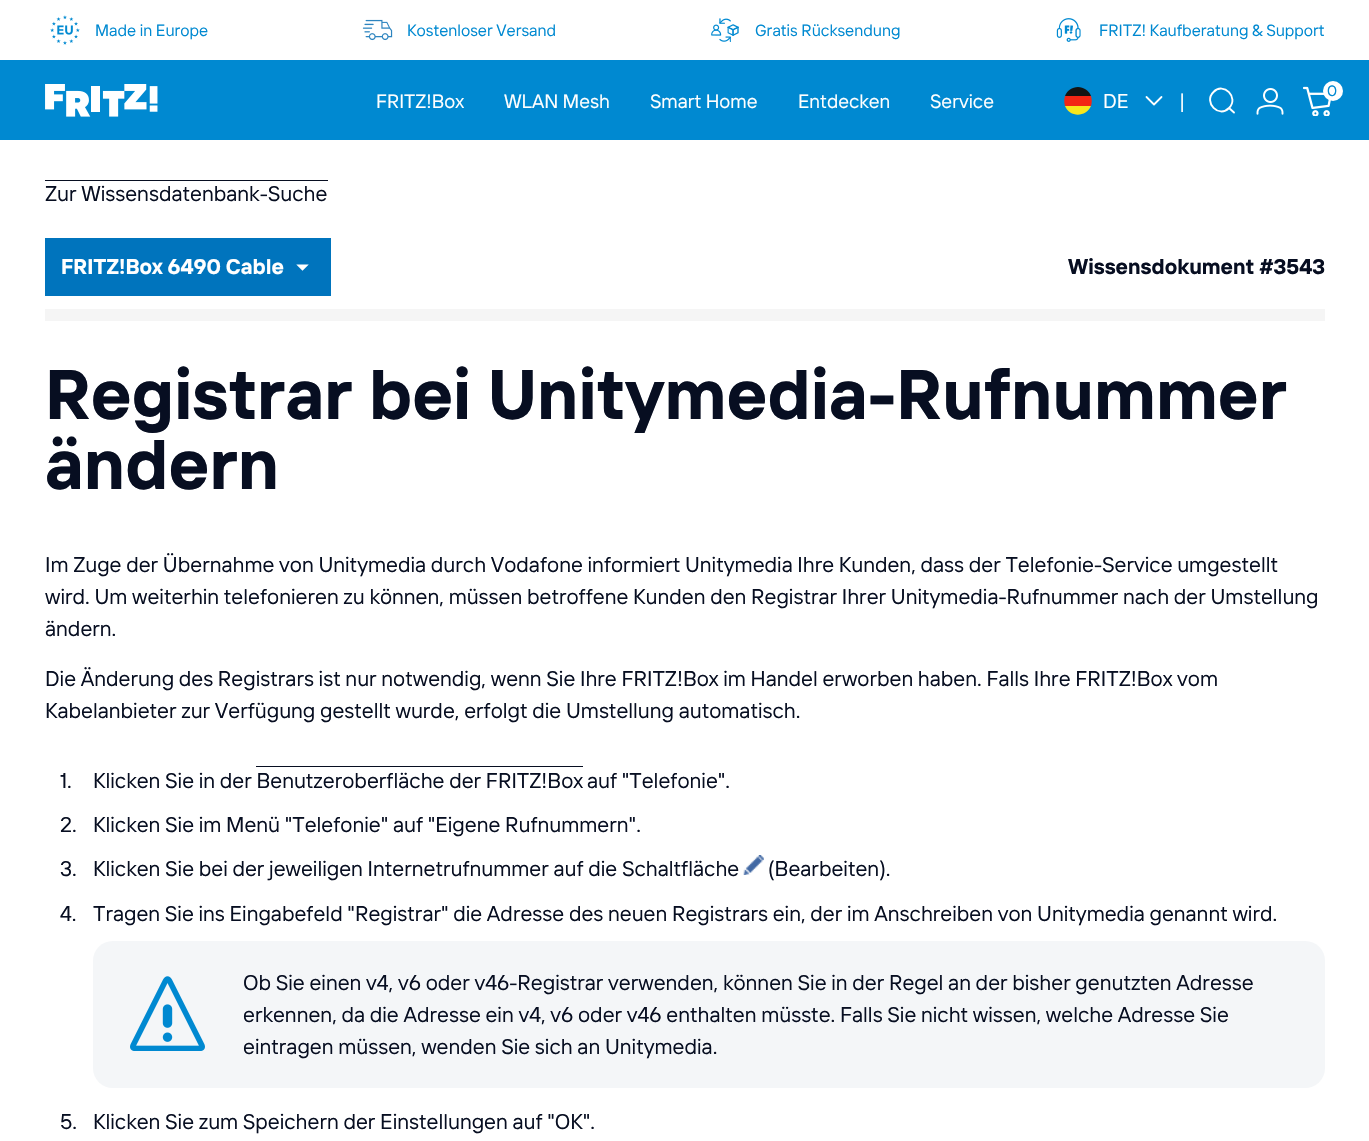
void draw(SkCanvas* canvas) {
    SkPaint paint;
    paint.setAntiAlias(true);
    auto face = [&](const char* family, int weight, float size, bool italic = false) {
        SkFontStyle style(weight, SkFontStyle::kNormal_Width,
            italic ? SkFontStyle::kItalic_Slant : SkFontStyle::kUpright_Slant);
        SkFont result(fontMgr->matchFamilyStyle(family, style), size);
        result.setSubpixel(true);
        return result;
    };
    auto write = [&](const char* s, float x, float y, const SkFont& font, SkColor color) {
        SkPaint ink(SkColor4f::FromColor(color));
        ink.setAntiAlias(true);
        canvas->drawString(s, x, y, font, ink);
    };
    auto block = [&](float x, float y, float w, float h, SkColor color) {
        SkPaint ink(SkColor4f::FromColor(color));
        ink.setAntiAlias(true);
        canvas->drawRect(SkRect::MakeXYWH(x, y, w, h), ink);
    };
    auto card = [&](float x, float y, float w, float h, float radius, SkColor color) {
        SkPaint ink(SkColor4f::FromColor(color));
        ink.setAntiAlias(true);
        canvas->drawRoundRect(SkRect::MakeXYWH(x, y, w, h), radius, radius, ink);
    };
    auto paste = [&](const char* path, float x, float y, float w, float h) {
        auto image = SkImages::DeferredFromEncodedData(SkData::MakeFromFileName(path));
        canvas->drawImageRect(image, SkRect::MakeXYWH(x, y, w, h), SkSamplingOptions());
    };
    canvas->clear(SK_ColorWHITE);
    paste("pic1.png", 50, 15, 30, 30);
    auto kFont1 = face("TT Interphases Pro", 400, 16.25f);
    write("Made in Europe", 95, 36, kFont1, SkColorSetRGB(0, 137, 209));
    paste("pic2.png", 362, 19, 31, 22);
    write("Kostenloser Versand", 407, 36, kFont1, SkColorSetRGB(0, 137, 209));
    paste("pic3.png", 711, 18, 28, 24);
    write("Gratis Rücksendung", 755, 36, kFont1, SkColorSetRGB(0, 137, 209));
    paste("pic4.png", 1056, 18, 25, 24);
    write("FRITZ! Kaufberatung & Support", 1099, 36, kFont1, SkColorSetRGB(0, 137, 209));
    block(0, 60, 1369, 80, SkColorSetRGB(0, 137, 209));
    paste("pic5.png", 45, 84, 113, 33);
    auto kFont2 = face("TT Interphases Pro", 400, 19.25f);
    write("FRITZ!Box", 376, 108, kFont2, SK_ColorWHITE);
    write("WLAN Mesh", 504, 108, kFont2, SK_ColorWHITE);
    write("Smart Home", 650, 108, kFont2, SK_ColorWHITE);
    write("Entdecken", 798, 108, kFont2, SK_ColorWHITE);
    write("Service", 930, 108, kFont2, SK_ColorWHITE);
    paint.setStyle(SkPaint::kStroke_Style);
    paint.setStrokeWidth(1.9f);
    paint.setStrokeCap(SkPaint::kRound_Cap);
    paint.setColor(SK_ColorWHITE);
    canvas->drawPath(SkPathBuilder().moveTo(1234, 112.5f).lineTo(1229, 108).moveTo(1229, 108).cubicTo(1239.5f, 97.5f, 1223.5f, 81.5f, 1213.5f, 92).cubicTo(1203, 102.5f, 1219, 118.5f, 1229, 108).close().detach(), paint);
    paste("pic6.png", 1256, 88, 28, 27);
    paste("pic7.png", 1303, 86, 28, 30);
    paint.setStyle(SkPaint::kFill_Style);
    canvas->drawCircle(1333, 91, 10, paint);
    auto kFont3 = face("TT Interphases Pro", 400, 15);
    write("0", 1327, 96, kFont3, SkColorSetRGB(0, 137, 209));
    paint.setColor(SkColorSetRGB(243, 38, 20));
    canvas->drawPath(SkPathBuilder().moveTo(1091, 96).lineTo(1065, 96).cubicTo(1064, 99, 1064, 103, 1065, 106).lineTo(1091, 106).cubicTo(1092, 103, 1092, 99, 1091, 96).close().detach(), paint);
    paint.setColor(SkColorSetRGB(248, 231, 28));
    canvas->drawPath(SkPathBuilder().moveTo(1091, 106).lineTo(1065, 106).cubicTo(1069.5f, 117.5f, 1086, 117.5f, 1091, 106).close().detach(), paint);
    paint.setColor(SkColorSetRGB(19, 20, 19));
    canvas->drawPath(SkPathBuilder().moveTo(1078, 87).cubicTo(1083.5f, 87, 1089, 90.5f, 1091, 96).lineTo(1065, 96).cubicTo(1067, 90.5f, 1072, 87, 1078, 87).close().detach(), paint);
    auto kFont4 = face("TT Interphases Pro", 400, 20);
    write("DE", 1103, 108, kFont4, SK_ColorWHITE);
    paint.setStyle(SkPaint::kStroke_Style);
    paint.setStrokeWidth(1.8f);
    paint.setStrokeJoin(SkPaint::kRound_Join);
    paint.setColor(SK_ColorWHITE);
    canvas->drawPath(SkPathBuilder().moveTo(1146.5f, 97).lineTo(1154, 104.5f).lineTo(1161.5f, 97).detach(), paint);
    write("|", 1179, 108, kFont4, SK_ColorWHITE);
    auto kFont5 = face("TT Interphases Pro", 400, 21.25f);
    write("Zur Wissensdatenbank-Suche", 45, 201, kFont5, SkColorSetRGB(7, 14, 33));
    block(45, 180, 283, 1, SkColorSetRGB(7, 14, 33));
    block(45, 309, 1280, 12, SkColorSetRGB(245, 245, 245));
    block(45, 238, 286, 58, SkColorSetRGB(0, 116, 189));
    auto kFont6 = face("TT Interphases Pro", 700, 21.25f);
    write("FRITZ!Box 6490 Cable", 61, 274, kFont6, SK_ColorWHITE);
    paste("pic8.png", 296, 264, 13, 7);
    write("Wissensdokument #3543", 1068, 274, kFont6, SkColorSetRGB(7, 14, 33));
    auto kFont7 = face("TT Interphases Pro", 700, 70);
    write("Registrar bei Unitymedia-Rufnummer", 45, 419, kFont7, SkColorSetRGB(7, 14, 33));
    write("ändern", 45, 489, kFont7, SkColorSetRGB(7, 14, 33));
    write("Im Zuge der Übernahme von Unitymedia durch Vodafone informiert Unitymedia Ihre Kunden, dass der Telefonie-Service umgestellt", 45, 572, kFont5, SkColorSetRGB(7, 14, 33));
    write("wird. Um weiterhin telefonieren zu können, müssen betroffene Kunden den Registrar Ihrer Unitymedia-Rufnummer nach der Umstellung", 45, 604, kFont5, SkColorSetRGB(7, 14, 33));
    write("ändern.", 45, 636, kFont5, SkColorSetRGB(7, 14, 33));
    write("Die Änderung des Registrars ist nur notwendig, wenn Sie Ihre FRITZ!Box im Handel erworben haben. Falls Ihre FRITZ!Box vom", 45, 686, kFont5, SkColorSetRGB(7, 14, 33));
    write("Kabelanbieter zur Verfügung gestellt wurde, erfolgt die Umstellung automatisch.", 45, 718, kFont5, SkColorSetRGB(7, 14, 33));
    block(256, 766, 327, 1, SkColorSetRGB(7, 14, 33));
    write("1.", 60, 788, kFont5, SkColorSetRGB(7, 14, 33));
    write("Klicken Sie in der Benutzeroberfläche der FRITZ!Box", 93, 788, kFont5, SkColorSetRGB(7, 14, 33));
    write("auf \"Telefonie\".", 587, 788, kFont5, SkColorSetRGB(7, 14, 33));
    write("2.", 60, 832, kFont5, SkColorSetRGB(7, 14, 33));
    write("Klicken Sie im Menü \"Telefonie\" auf \"Eigene Rufnummern\".", 93, 832, kFont5, SkColorSetRGB(7, 14, 33));
    write("3.", 60, 876, kFont5, SkColorSetRGB(7, 14, 33));
    write("Klicken Sie bei der jeweiligen Internetrufnummer auf die Schaltfläche", 93, 876, kFont5, SkColorSetRGB(7, 14, 33));
    paste("pic9.png", 743, 855, 21, 20);
    write("(Bearbeiten).", 768, 876, kFont5, SkColorSetRGB(7, 14, 33));
    write("4.", 60, 921, kFont5, SkColorSetRGB(7, 14, 33));
    write("Tragen Sie ins Eingabefeld \"Registrar\" die Adresse des neuen Registrars ein, der im Anschreiben von Unitymedia genannt wird.", 93, 921, kFont5, SkColorSetRGB(7, 14, 33));
    card(93, 941, 1232, 147, 20, SkColorSetRGB(244, 246, 248));
    paste("pic10.png", 130, 976, 75, 75);
    write("Ob Sie einen v4, v6 oder v46-Registrar verwenden, können Sie in der Regel an der bisher genutzten Adresse", 243, 990, kFont5, SkColorSetRGB(7, 14, 33));
    write("erkennen, da die Adresse ein v4, v6 oder v46 enthalten müsste. Falls Sie nicht wissen, welche Adresse Sie", 243, 1022, kFont5, SkColorSetRGB(7, 14, 33));
    write("eintragen müssen, wenden Sie sich an Unitymedia.", 243, 1054, kFont5, SkColorSetRGB(7, 14, 33));
    write("5.", 60, 1129, kFont5, SkColorSetRGB(7, 14, 33));
    write("Klicken Sie zum Speichern der Einstellungen auf \"OK\".", 93, 1129, kFont5, SkColorSetRGB(7, 14, 33));
}
